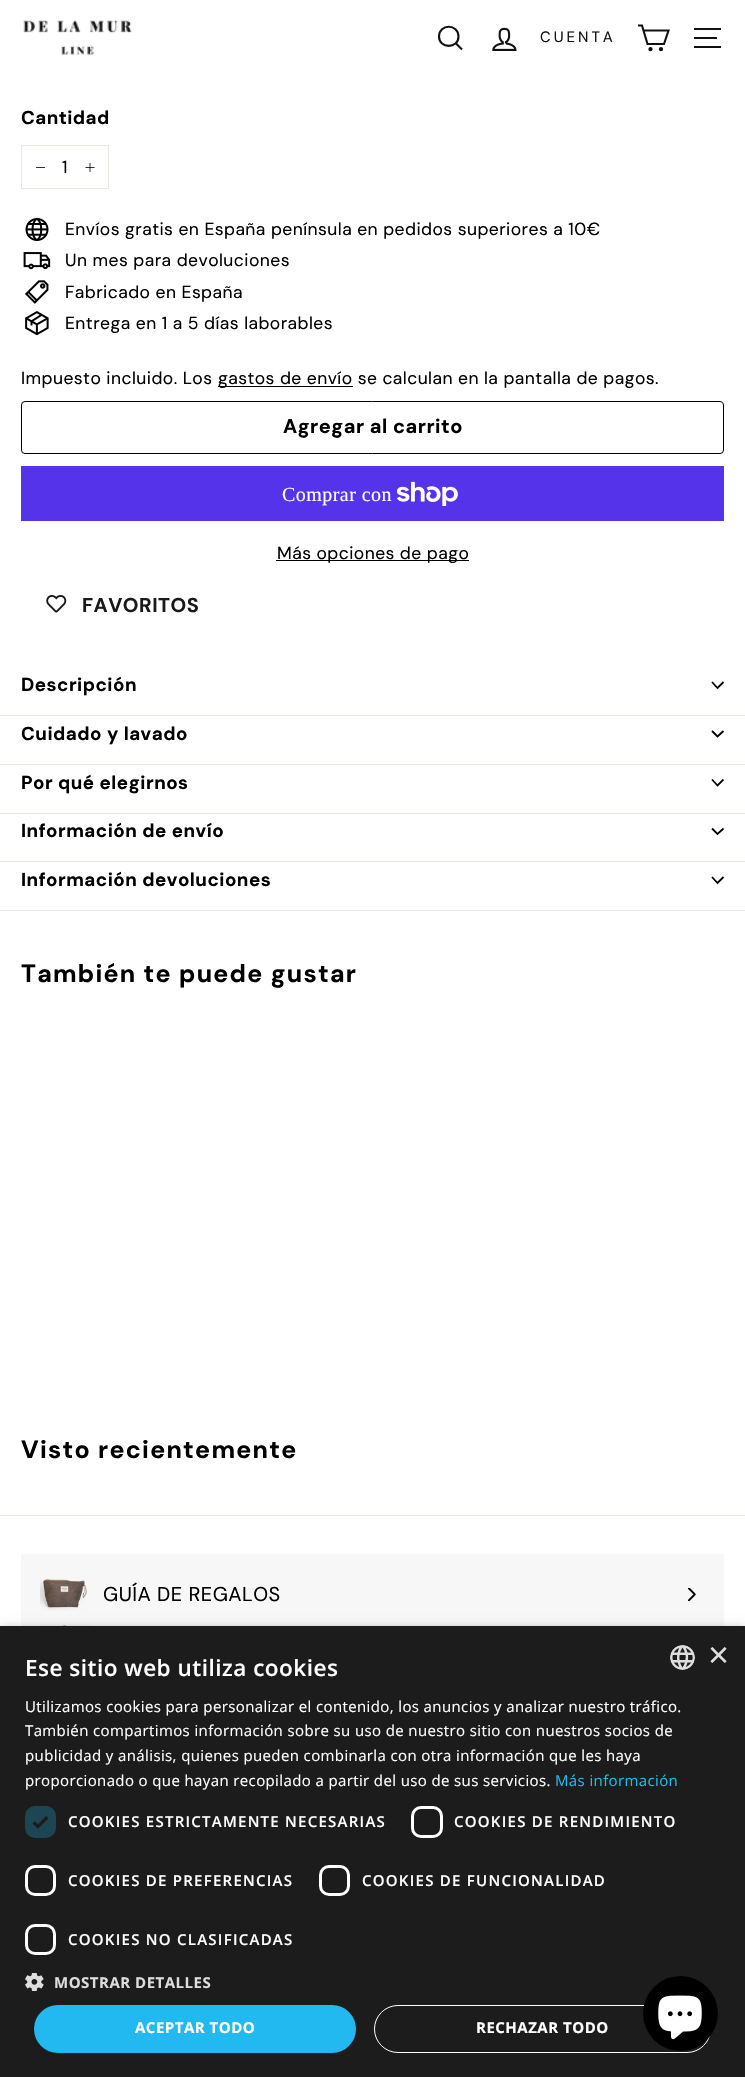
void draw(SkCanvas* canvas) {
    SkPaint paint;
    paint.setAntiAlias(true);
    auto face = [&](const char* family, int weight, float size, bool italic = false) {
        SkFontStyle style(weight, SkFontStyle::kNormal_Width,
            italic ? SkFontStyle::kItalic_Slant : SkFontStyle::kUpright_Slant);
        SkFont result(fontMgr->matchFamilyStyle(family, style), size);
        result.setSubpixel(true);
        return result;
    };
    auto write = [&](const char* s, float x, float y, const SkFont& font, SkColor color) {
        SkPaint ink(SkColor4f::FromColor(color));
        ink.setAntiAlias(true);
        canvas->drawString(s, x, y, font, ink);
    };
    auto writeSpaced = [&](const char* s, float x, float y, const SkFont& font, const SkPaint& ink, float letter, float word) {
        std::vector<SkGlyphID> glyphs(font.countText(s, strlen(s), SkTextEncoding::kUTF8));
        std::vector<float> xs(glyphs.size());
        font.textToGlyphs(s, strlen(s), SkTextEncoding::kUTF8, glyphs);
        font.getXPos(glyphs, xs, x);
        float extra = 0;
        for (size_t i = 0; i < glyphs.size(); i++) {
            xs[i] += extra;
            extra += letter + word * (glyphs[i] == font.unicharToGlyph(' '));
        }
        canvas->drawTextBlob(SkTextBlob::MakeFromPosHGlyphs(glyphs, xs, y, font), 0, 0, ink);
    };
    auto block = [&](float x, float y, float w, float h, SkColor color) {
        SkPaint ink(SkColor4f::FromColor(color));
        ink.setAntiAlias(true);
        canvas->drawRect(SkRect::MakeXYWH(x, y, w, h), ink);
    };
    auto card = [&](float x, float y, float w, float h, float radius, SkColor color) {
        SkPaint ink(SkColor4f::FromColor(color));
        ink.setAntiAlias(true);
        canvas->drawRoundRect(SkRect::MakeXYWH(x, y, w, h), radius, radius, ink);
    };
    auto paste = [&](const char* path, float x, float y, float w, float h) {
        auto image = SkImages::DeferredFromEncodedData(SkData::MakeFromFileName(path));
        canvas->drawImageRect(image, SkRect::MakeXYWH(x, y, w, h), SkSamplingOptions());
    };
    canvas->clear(SK_ColorWHITE);
    paste("pic1.png", 23, 20, 109, 35);
    paint.setStyle(SkPaint::kStroke_Style);
    paint.setStrokeWidth(2.1f);
    paint.setColor(SkColorSetRGB(17, 17, 17));
    canvas->drawPath(SkPathBuilder().moveTo(458.5f, 36.5f).cubicTo(458.5f, 49, 439, 49, 439, 36.5f).cubicTo(439, 23.5f, 458.5f, 23.5f, 458.5f, 36.5f).moveTo(462, 49.5f).lineTo(456, 43.5f).detach(), paint);
    paste("pic2.png", 492, 27, 25, 24);
    auto kFont1 = face("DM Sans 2", 400, 15);
    paint.setStyle(SkPaint::kFill_Style);
    writeSpaced("CUENTA", 540, 42, kFont1, paint, 3, 0);
    paint.setStyle(SkPaint::kStroke_Style);
    canvas->drawPath(SkPathBuilder().moveTo(643.5f, 30.5f).lineTo(668.5f, 30.5f).lineTo(664, 44).lineTo(647.5f, 44).lineTo(642, 25.5f).lineTo(638, 25.5f).detach(), paint);
    canvas->drawCircle(650.5f, 49.2f, 1.1f, paint);
    canvas->drawCircle(661, 49.2f, 1.1f, paint);
    block(694, 28, 27, 2, SkColorSetRGB(17, 17, 17));
    block(694, 37, 23, 2, SkColorSetRGB(17, 17, 17));
    block(694, 46, 27, 2, SkColorSetRGB(17, 17, 17));
    auto kFont2 = face("DM Sans", 700, 18.75f);
    paint.setStyle(SkPaint::kFill_Style);
    paint.setColor(SK_ColorBLACK);
    writeSpaced("Cantidad", 21, 124, kFont2, paint, 0.45f, 0);
    paint.setStyle(SkPaint::kStroke_Style);
    paint.setStrokeWidth(1);
    paint.setColor(SkColorSetRGB(232, 232, 225));
    canvas->drawRect(SkRect::MakeXYWH(21.5f, 145.5f, 87, 43), paint);
    block(36, 167, 9, 1, SkColorSetRGB(51, 51, 51));
    auto kFont3 = face("DM Sans", 400, 17.5f);
    paint.setStyle(SkPaint::kFill_Style);
    paint.setColor(SK_ColorBLACK);
    writeSpaced("1", 62, 173, kFont3, paint, 0.45f, 0);
    paint.setStyle(SkPaint::kStroke_Style);
    paint.setStrokeWidth(0.8f);
    canvas->drawPath(SkPathBuilder().moveTo(90, 163).lineTo(90, 172).moveTo(94.5f, 167.5f).lineTo(85.5f, 167.5f).detach(), paint);
    paste("pic3.png", 25, 217, 24, 24);
    paint.setStyle(SkPaint::kFill_Style);
    writeSpaced("Envíos gratis en España península en pedidos superiores a 10€", 65, 235, kFont3, paint, 0.45f, 0);
    paste("pic4.png", 23, 252, 28, 18);
    writeSpaced("Un mes para devoluciones", 65, 266, kFont3, paint, 0.45f, 0);
    paste("pic5.png", 25, 280, 24, 24);
    writeSpaced("Fabricado en España", 65, 298, kFont3, paint, 0.45f, 0);
    paste("pic6.png", 25, 311, 24, 25);
    writeSpaced("Entrega en 1 a 5 días laborables", 65, 329, kFont3, paint, 0.45f, 0);
    writeSpaced("Impuesto incluido. Los", 21, 384, kFont3, paint, 0.45f, 0);
    block(218, 386, 135, 1, SK_ColorBLACK);
    writeSpaced("gastos de envío se calculan en la pantalla de pagos.", 218, 384, kFont3, paint, 0.45f, 0);
    paint.setStyle(SkPaint::kStroke_Style);
    paint.setStrokeWidth(1);
    canvas->drawRoundRect(SkRect::MakeXYWH(21.5f, 401.5f, 702, 52), 3.5f, 3.5f, paint);
    auto kFont4 = face("DM Sans 2", 700, 20);
    paint.setStyle(SkPaint::kFill_Style);
    writeSpaced("Agregar al carrito", 283, 433, kFont4, paint, 0.5f, 0);
    block(21, 466, 703, 55, SkColorSetRGB(84, 51, 235));
    auto kFont5 = face("Liberation Serif", 400, 20);
    paint.setColor(SK_ColorWHITE);
    writeSpaced("Comprar con", 282, 501, kFont5, paint, 0.45f, 0);
    paste("pic7.png", 396, 481, 62, 25);
    block(276, 560, 193, 1, SK_ColorBLACK);
    paint.setColor(SK_ColorBLACK);
    writeSpaced("Más opciones de pago", 277, 559, kFont3, paint, 0.45f, 0);
    paste("pic8.png", 46, 595, 21, 18);
    paint.setColor(SkColorSetRGB(26, 26, 26));
    writeSpaced("FAVORITOS", 82, 612, kFont4, paint, 0.5f, 0);
    block(0, 715, 745, 1, SkColorSetRGB(232, 232, 225));
    paint.setColor(SK_ColorBLACK);
    writeSpaced("Descripción", 21, 691, kFont2, paint, 0.5f, 0);
    paint.setStyle(SkPaint::kStroke_Style);
    paint.setStrokeWidth(1.8f);
    canvas->drawPath(SkPathBuilder().moveTo(712, 682).lineTo(717.5f, 688).lineTo(723.5f, 682).detach(), paint);
    block(0, 764, 745, 1, SkColorSetRGB(232, 232, 225));
    paint.setStyle(SkPaint::kFill_Style);
    writeSpaced("Cuidado y lavado", 21, 740, kFont2, paint, 0.5f, 0);
    paint.setStyle(SkPaint::kStroke_Style);
    canvas->drawPath(SkPathBuilder().moveTo(712, 731).lineTo(717.5f, 736.5f).lineTo(723.5f, 731).detach(), paint);
    block(0, 813, 745, 1, SkColorSetRGB(232, 232, 225));
    paint.setStyle(SkPaint::kFill_Style);
    writeSpaced("Por qué elegirnos", 21, 789, kFont2, paint, 0.5f, 0);
    paint.setStyle(SkPaint::kStroke_Style);
    canvas->drawPath(SkPathBuilder().moveTo(712, 779.5f).lineTo(717.5f, 785.5f).lineTo(723.5f, 779.5f).detach(), paint);
    block(0, 861, 745, 1, SkColorSetRGB(232, 232, 225));
    paint.setStyle(SkPaint::kFill_Style);
    writeSpaced("Información de envío", 21, 837, kFont2, paint, 0.5f, 0);
    paint.setStyle(SkPaint::kStroke_Style);
    canvas->drawPath(SkPathBuilder().moveTo(712, 828.5f).lineTo(717.5f, 834).lineTo(723.5f, 828.5f).detach(), paint);
    block(0, 910, 745, 1, SkColorSetRGB(232, 232, 225));
    paint.setStyle(SkPaint::kFill_Style);
    writeSpaced("Información devoluciones", 21, 886, kFont2, paint, 0.5f, 0);
    paint.setStyle(SkPaint::kStroke_Style);
    canvas->drawPath(SkPathBuilder().moveTo(712, 877).lineTo(717.5f, 883).lineTo(723.5f, 877).detach(), paint);
    auto kFont6 = face("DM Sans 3", 700, 25);
    paint.setStyle(SkPaint::kFill_Style);
    writeSpaced("También te puede gustar", 21, 982, kFont6, paint, 1.25f, 0);
    writeSpaced("Visto recientemente", 21, 1458, kFont6, paint, 1.25f, 0);
    block(0, 1515, 745, 1, SkColorSetRGB(232, 232, 225));
    paste("pic9.png", 40, 1579, 47, 32);
    paste("pic10.png", 688, 1588, 8, 13);
    paste("pic11.png", 40, 1625, 50, 1);
    block(21, 1554, 703, 72, SkColorSetARGB(8, 0, 0, 0));
    auto kFont7 = face("DM Sans 2", 400, 20);
    writeSpaced("GUÍA DE REGALOS", 103, 1601, kFont7, paint, 0.45f, 0);
    paint.setColor(SkColorSetARGB(89, 0, 0, 0));
    paint.setMaskFilter(SkMaskFilter::MakeBlur(kNormal_SkBlurStyle, 5));
    canvas->drawRect(SkRect::MakeXYWH(1, 1629, 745, 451), paint);
    paint.setMaskFilter(nullptr);
    block(0, 1626, 745, 451, SkColorSetRGB(28, 28, 28));
    paste("pic12.png", 670, 1645, 25, 25);
    auto kFont8 = face("Liberation Sans", 400, 36);
    write("×", 708, 1667, kFont8, SkColorSetRGB(221, 221, 221));
    auto kFont9 = face("Open Sans", 600, 22.5f);
    paint.setColor(SK_ColorWHITE);
    writeSpaced("Ese sitio web utiliza cookies", 25, 1676, kFont9, paint, 0.5f, 0);
    auto kFont10 = face("Open Sans", 400, 15);
    writeSpaced("Utilizamos cookies para personalizar el contenido, los anuncios y analizar nuestro tráfico.", 25, 1712, kFont10, paint, 0.38f, 0);
    writeSpaced("También compartimos información sobre su uso de nuestro sitio con nuestros socios de", 25, 1736, kFont10, paint, 0.38f, 0);
    writeSpaced("publicidad y análisis, quienes pueden combinarla con otra información que les haya", 25, 1761, kFont10, paint, 0.38f, 0);
    writeSpaced("proporcionado o que hayan recopilado a partir del uso de sus servicios.", 25, 1786, kFont10, paint, 0.38f, 0);
    paint.setColor(SkColorSetRGB(34, 184, 240));
    writeSpaced("Más información", 555, 1786, kFont10, paint, 0.38f, 0);
    card(25, 1806, 31, 32, 10, SkColorSetRGB(30, 69, 83));
    paint.setStyle(SkPaint::kStroke_Style);
    paint.setStrokeWidth(3.3f);
    paint.setColor(SkColorSetRGB(28, 28, 28));
    canvas->drawPath(SkPathBuilder().moveTo(33.5f, 1822.5f).lineTo(38, 1826.5f).lineTo(47.5f, 1817).detach(), paint);
    auto kFont11 = face("Open Sans", 600, 15);
    paint.setStyle(SkPaint::kFill_Style);
    paint.setColor(SK_ColorWHITE);
    writeSpaced("COOKIES ESTRICTAMENTE NECESARIAS", 68, 1827, kFont11, paint, 1.25f, 0);
    paint.setStyle(SkPaint::kStroke_Style);
    paint.setStrokeWidth(3);
    canvas->drawRoundRect(SkRect::MakeXYWH(412.5f, 1807.5f, 29, 29), 8.5f, 8.5f, paint);
    paint.setStyle(SkPaint::kFill_Style);
    writeSpaced("COOKIES DE RENDIMIENTO", 454, 1827, kFont11, paint, 1.25f, 0);
    paint.setStyle(SkPaint::kStroke_Style);
    canvas->drawRoundRect(SkRect::MakeXYWH(26.5f, 1866.5f, 28, 28), 8.5f, 8.5f, paint);
    paint.setStyle(SkPaint::kFill_Style);
    writeSpaced("COOKIES DE PREFERENCIAS", 68, 1886, kFont11, paint, 1.25f, 0);
    paint.setStyle(SkPaint::kStroke_Style);
    canvas->drawRoundRect(SkRect::MakeXYWH(320.5f, 1866.5f, 28, 28), 8.5f, 8.5f, paint);
    paint.setStyle(SkPaint::kFill_Style);
    writeSpaced("COOKIES DE FUNCIONALIDAD", 362, 1886, kFont11, paint, 1.25f, 0);
    paint.setStyle(SkPaint::kStroke_Style);
    canvas->drawRoundRect(SkRect::MakeXYWH(26.5f, 1925.5f, 28, 28), 8.5f, 8.5f, paint);
    paint.setStyle(SkPaint::kFill_Style);
    writeSpaced("COOKIES NO CLASIFICADAS", 68, 1945, kFont11, paint, 1.25f, 0);
    paste("pic13.png", 25, 1973, 19, 18);
    auto kFont12 = face("Open Sans", 700, 15);
    paint.setColor(SkColorSetRGB(221, 221, 221));
    writeSpaced("MOSTRAR DETALLES", 54, 1988, kFont12, paint, 0.5f, 0);
    card(34, 2005, 322, 48, 24, SkColorSetRGB(34, 184, 240));
    paint.setColor(SK_ColorWHITE);
    writeSpaced("ACEPTAR TODO", 135, 2033, kFont12, paint, 0.5f, 0);
    paint.setStyle(SkPaint::kStroke_Style);
    paint.setStrokeWidth(1);
    canvas->drawRoundRect(SkRect::MakeXYWH(374.5f, 2005.5f, 336, 47), 23.5f, 23.5f, paint);
    paint.setStyle(SkPaint::kFill_Style);
    writeSpaced("RECHAZAR TODO", 476, 2033, kFont12, paint, 0.5f, 0);
    paint.setColor(SK_ColorBLACK);
    canvas->drawCircle(680.5f, 2013.5f, 37.5f, paint);
    paste("pic14.png", 658, 1995, 44, 45);
}
